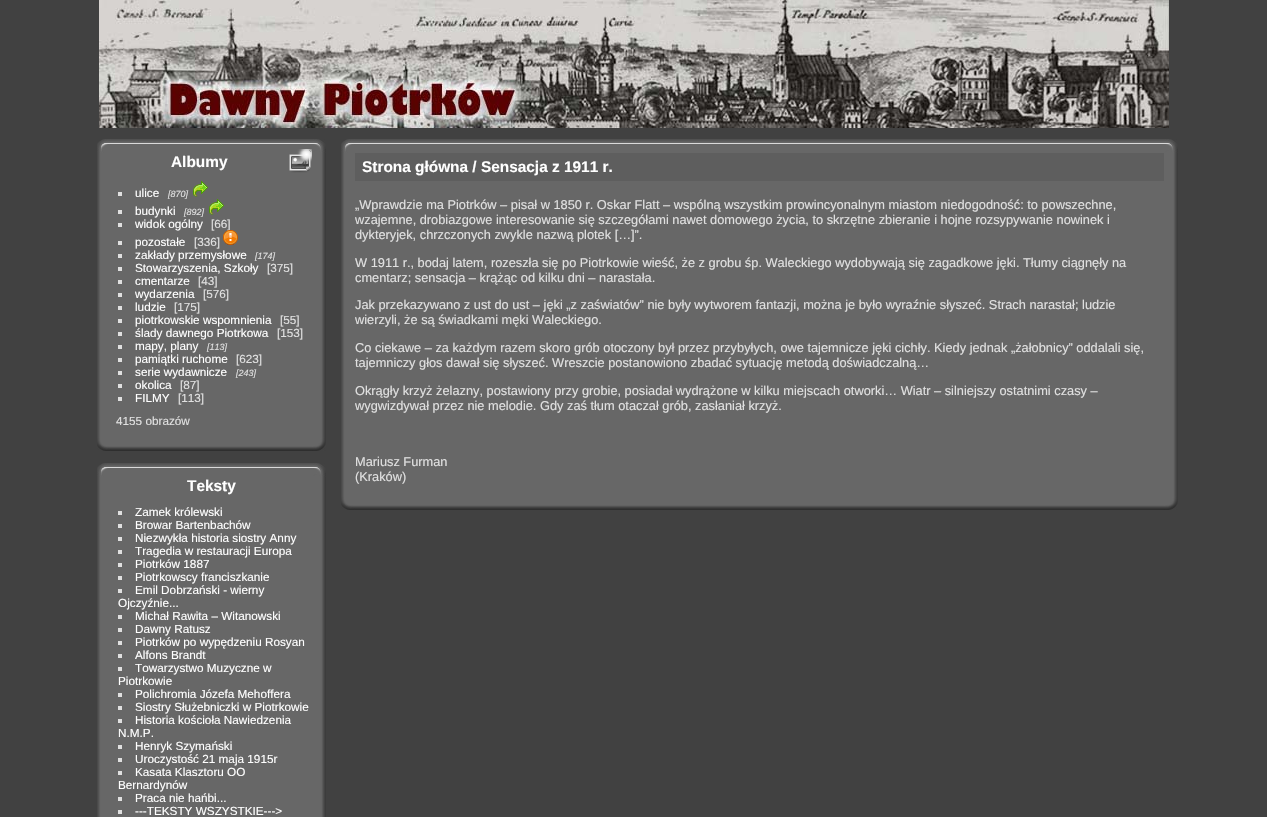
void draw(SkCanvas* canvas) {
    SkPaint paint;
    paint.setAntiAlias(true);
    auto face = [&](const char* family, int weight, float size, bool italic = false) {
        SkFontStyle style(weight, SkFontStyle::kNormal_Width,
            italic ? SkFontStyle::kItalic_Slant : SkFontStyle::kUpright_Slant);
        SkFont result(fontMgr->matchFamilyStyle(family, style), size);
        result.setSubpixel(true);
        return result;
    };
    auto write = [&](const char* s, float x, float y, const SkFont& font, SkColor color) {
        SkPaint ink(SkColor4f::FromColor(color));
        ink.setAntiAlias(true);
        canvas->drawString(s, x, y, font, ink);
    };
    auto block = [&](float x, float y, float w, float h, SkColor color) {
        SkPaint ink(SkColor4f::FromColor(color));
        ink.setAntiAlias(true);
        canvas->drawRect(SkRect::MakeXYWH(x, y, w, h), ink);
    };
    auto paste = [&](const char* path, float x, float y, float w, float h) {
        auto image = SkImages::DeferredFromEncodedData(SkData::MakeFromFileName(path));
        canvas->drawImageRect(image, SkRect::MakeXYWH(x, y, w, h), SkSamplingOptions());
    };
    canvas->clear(SkColorSetRGB(65, 65, 65));
    paste("pic1.png", 99, 0, 1070, 128);
    paste("pic2.png", 97, 139, 14, 14);
    paste("pic3.png", 111, 139, 201, 14);
    paste("pic4.png", 312, 139, 14, 14);
    paste("pic5.png", 97, 153, 14, 284);
    block(111, 153, 201, 284, SkColorSetRGB(103, 103, 103));
    auto kFont1 = face("Liberation Sans", 700, 15.4f);
    write("Albumy", 171, 167, kFont1, SK_ColorWHITE);
    paste("pic6.png", 289, 149, 23, 24);
    block(118, 192, 4, 4, SkColorSetRGB(224, 224, 224));
    auto kFont2 = face("Liberation Sans", 400, 11.75f);
    write("ulice", 135, 197, kFont2, SK_ColorWHITE);
    auto kFont3 = face("Liberation Sans", 400, 9, true);
    write("[870]", 168, 197, kFont3, SkColorSetRGB(224, 224, 224));
    paste("pic7.png", 193, 181, 15, 16);
    block(118, 210, 4, 4, SkColorSetRGB(224, 224, 224));
    write("budynki", 135, 215, kFont2, SK_ColorWHITE);
    write("[892]", 184, 215, kFont3, SkColorSetRGB(224, 224, 224));
    paste("pic7.png", 209, 199, 15, 16);
    block(118, 223, 4, 4, SkColorSetRGB(224, 224, 224));
    write("widok ogólny", 135, 228, kFont2, SK_ColorWHITE);
    write("[66]", 211, 228, kFont2, SkColorSetRGB(224, 224, 224));
    block(118, 241, 4, 4, SkColorSetRGB(224, 224, 224));
    write("pozostałe", 135, 246, kFont2, SK_ColorWHITE);
    write("[336]", 194, 246, kFont2, SkColorSetRGB(224, 224, 224));
    paste("pic8.png", 223, 230, 15, 15);
    block(118, 254, 4, 4, SkColorSetRGB(224, 224, 224));
    write("zakłady przemysłowe", 135, 259, kFont2, SK_ColorWHITE);
    write("[174]", 255, 259, kFont3, SkColorSetRGB(224, 224, 224));
    block(118, 267, 4, 4, SkColorSetRGB(224, 224, 224));
    write("Stowarzyszenia, Szkoły", 135, 272, kFont2, SK_ColorWHITE);
    write("[375]", 267, 272, kFont2, SkColorSetRGB(224, 224, 224));
    block(118, 280, 4, 4, SkColorSetRGB(224, 224, 224));
    write("cmentarze", 135, 285, kFont2, SK_ColorWHITE);
    write("[43]", 198, 285, kFont2, SkColorSetRGB(224, 224, 224));
    block(118, 293, 4, 4, SkColorSetRGB(224, 224, 224));
    write("wydarzenia", 135, 298, kFont2, SK_ColorWHITE);
    write("[576]", 203, 298, kFont2, SkColorSetRGB(224, 224, 224));
    block(118, 306, 4, 4, SkColorSetRGB(224, 224, 224));
    write("ludzie", 135, 311, kFont2, SK_ColorWHITE);
    write("[175]", 174, 311, kFont2, SkColorSetRGB(224, 224, 224));
    block(118, 319, 4, 4, SkColorSetRGB(224, 224, 224));
    write("piotrkowskie wspomnienia", 135, 324, kFont2, SK_ColorWHITE);
    write("[55]", 280, 324, kFont2, SkColorSetRGB(224, 224, 224));
    block(118, 332, 4, 4, SkColorSetRGB(224, 224, 224));
    write("ślady dawnego Piotrkowa", 135, 337, kFont2, SK_ColorWHITE);
    write("[153]", 277, 337, kFont2, SkColorSetRGB(224, 224, 224));
    block(118, 345, 4, 4, SkColorSetRGB(224, 224, 224));
    write("mapy, plany", 135, 350, kFont2, SK_ColorWHITE);
    write("[113]", 207, 350, kFont3, SkColorSetRGB(224, 224, 224));
    block(118, 358, 4, 4, SkColorSetRGB(224, 224, 224));
    write("pamiątki ruchome", 135, 363, kFont2, SK_ColorWHITE);
    write("[623]", 236, 363, kFont2, SkColorSetRGB(224, 224, 224));
    block(118, 371, 4, 4, SkColorSetRGB(224, 224, 224));
    write("serie wydawnicze", 135, 376, kFont2, SK_ColorWHITE);
    write("[243]", 236, 376, kFont3, SkColorSetRGB(224, 224, 224));
    block(118, 384, 4, 4, SkColorSetRGB(224, 224, 224));
    write("okolica", 135, 389, kFont2, SK_ColorWHITE);
    write("[87]", 180, 389, kFont2, SkColorSetRGB(224, 224, 224));
    block(118, 397, 4, 4, SkColorSetRGB(224, 224, 224));
    write("FILMY", 135, 402, kFont2, SK_ColorWHITE);
    write("[113]", 178, 402, kFont2, SkColorSetRGB(224, 224, 224));
    write("4155 obrazów", 116, 425, kFont2, SkColorSetRGB(224, 224, 224));
    paste("pic9.png", 312, 153, 14, 284);
    paste("pic10.png", 97, 437, 14, 14);
    paste("pic11.png", 111, 437, 201, 14);
    paste("pic12.png", 312, 437, 14, 14);
    paste("pic2.png", 97, 463, 14, 14);
    paste("pic3.png", 111, 463, 201, 14);
    paste("pic4.png", 312, 463, 14, 14);
    paste("pic13.png", 97, 477, 14, 340);
    block(111, 477, 201, 340, SkColorSetRGB(103, 103, 103));
    write("Teksty", 187, 491, kFont1, SK_ColorWHITE);
    block(118, 511, 4, 4, SkColorSetRGB(224, 224, 224));
    write("Zamek królewski", 135, 516, kFont2, SK_ColorWHITE);
    block(118, 524, 4, 4, SkColorSetRGB(224, 224, 224));
    write("Browar Bartenbachów", 135, 529, kFont2, SK_ColorWHITE);
    block(118, 537, 4, 4, SkColorSetRGB(224, 224, 224));
    write("Niezwykła historia siostry Anny", 135, 542, kFont2, SK_ColorWHITE);
    block(118, 550, 4, 4, SkColorSetRGB(224, 224, 224));
    write("Tragedia w restauracji Europa", 135, 555, kFont2, SK_ColorWHITE);
    block(118, 563, 4, 4, SkColorSetRGB(224, 224, 224));
    write("Piotrków 1887", 135, 568, kFont2, SK_ColorWHITE);
    block(118, 576, 4, 4, SkColorSetRGB(224, 224, 224));
    write("Piotrkowscy franciszkanie", 135, 581, kFont2, SK_ColorWHITE);
    block(118, 589, 4, 4, SkColorSetRGB(224, 224, 224));
    write("Emil Dobrzański - wierny", 135, 594, kFont2, SK_ColorWHITE);
    write("Ojczyźnie...", 118, 607, kFont2, SK_ColorWHITE);
    block(118, 615, 4, 4, SkColorSetRGB(224, 224, 224));
    write("Michał Rawita – Witanowski", 135, 620, kFont2, SK_ColorWHITE);
    block(118, 628, 4, 4, SkColorSetRGB(224, 224, 224));
    write("Dawny Ratusz", 135, 633, kFont2, SK_ColorWHITE);
    block(118, 641, 4, 4, SkColorSetRGB(224, 224, 224));
    write("Piotrków po wypędzeniu Rosyan", 135, 646, kFont2, SK_ColorWHITE);
    block(118, 654, 4, 4, SkColorSetRGB(224, 224, 224));
    write("Alfons Brandt", 135, 659, kFont2, SK_ColorWHITE);
    block(118, 667, 4, 4, SkColorSetRGB(224, 224, 224));
    write("Towarzystwo Muzyczne w", 135, 672, kFont2, SK_ColorWHITE);
    write("Piotrkowie", 118, 685, kFont2, SK_ColorWHITE);
    block(118, 693, 4, 4, SkColorSetRGB(224, 224, 224));
    write("Polichromia Józefa Mehoffera", 135, 698, kFont2, SK_ColorWHITE);
    block(118, 706, 4, 4, SkColorSetRGB(224, 224, 224));
    write("Siostry Służebniczki w Piotrkowie", 135, 711, kFont2, SK_ColorWHITE);
    block(118, 719, 4, 4, SkColorSetRGB(224, 224, 224));
    write("Historia kościoła Nawiedzenia", 135, 724, kFont2, SK_ColorWHITE);
    write("N.M.P.", 118, 737, kFont2, SK_ColorWHITE);
    block(118, 745, 4, 4, SkColorSetRGB(224, 224, 224));
    write("Henryk Szymański", 135, 750, kFont2, SK_ColorWHITE);
    block(118, 758, 4, 4, SkColorSetRGB(224, 224, 224));
    write("Uroczystość 21 maja 1915r", 135, 763, kFont2, SK_ColorWHITE);
    block(118, 771, 4, 4, SkColorSetRGB(224, 224, 224));
    write("Kasata Klasztoru OO", 135, 776, kFont2, SK_ColorWHITE);
    write("Bernardynów", 118, 789, kFont2, SK_ColorWHITE);
    block(118, 797, 4, 4, SkColorSetRGB(224, 224, 224));
    write("Praca nie hańbi...", 135, 802, kFont2, SK_ColorWHITE);
    block(118, 810, 4, 4, SkColorSetRGB(224, 224, 224));
    write("---TEKSTY WSZYSTKIE--->", 135, 815, kFont2, SK_ColorWHITE);
    paste("pic14.png", 312, 477, 14, 340);
    paste("pic2.png", 341, 139, 14, 14);
    paste("pic15.png", 355, 139, 809, 14);
    paste("pic4.png", 1164, 139, 14, 14);
    paste("pic16.png", 341, 153, 14, 343);
    block(355, 181, 809, 315, SkColorSetRGB(103, 103, 103));
    block(355, 153, 809, 28, SkColorSetRGB(94, 94, 94));
    write("Strona główna / Sensacja z 1911 r.", 362, 172, kFont1, SK_ColorWHITE);
    auto kFont4 = face("Liberation Sans", 400, 12.8f);
    write("„Wprawdzie ma Piotrków – pisał w 1850 r. Oskar Flatt – wspólną wszystkim prowincyonalnym miastom niedogodność: to powszechne,", 355, 209, kFont4, SkColorSetRGB(224, 224, 224));
    write("wzajemne, drobiazgowe interesowanie się szczegółami nawet domowego życia, to skrzętne zbieranie i hojne rozsypywanie nowinek i", 355, 224, kFont4, SkColorSetRGB(224, 224, 224));
    write("dykteryjek, chrzczonych zwykle nazwą plotek […]”.", 355, 239, kFont4, SkColorSetRGB(224, 224, 224));
    write("W 1911 r., bodaj latem, rozeszła się po Piotrkowie wieść, że z grobu śp. Waleckiego wydobywają się zagadkowe jęki. Tłumy ciągnęły na", 355, 267, kFont4, SkColorSetRGB(224, 224, 224));
    write("cmentarz; sensacja – krążąc od kilku dni – narastała.", 355, 282, kFont4, SkColorSetRGB(224, 224, 224));
    write("Jak przekazywano z ust do ust – jęki „z zaświatów” nie były wytworem fantazji, można je było wyraźnie słyszeć. Strach narastał; ludzie", 355, 309, kFont4, SkColorSetRGB(224, 224, 224));
    write("wierzyli, że są świadkami męki Waleckiego.", 355, 324, kFont4, SkColorSetRGB(224, 224, 224));
    write("Co ciekawe – za każdym razem skoro grób otoczony był przez przybyłych, owe tajemnicze jęki cichły. Kiedy jednak „żałobnicy” oddalali się,", 355, 352, kFont4, SkColorSetRGB(224, 224, 224));
    write("tajemniczy głos dawał się słyszeć. Wreszcie postanowiono zbadać sytuację metodą doświadczalną…", 355, 367, kFont4, SkColorSetRGB(224, 224, 224));
    write("Okrągły krzyż żelazny, postawiony przy grobie, posiadał wydrążone w kilku miejscach otworki… Wiatr – silniejszy ostatnimi czasy –", 355, 395, kFont4, SkColorSetRGB(224, 224, 224));
    write("wygwizdywał przez nie melodie. Gdy zaś tłum otaczał grób, zasłaniał krzyż.", 355, 410, kFont4, SkColorSetRGB(224, 224, 224));
    write("Mariusz Furman", 355, 466, kFont4, SkColorSetRGB(224, 224, 224));
    write("(Kraków)", 355, 481, kFont4, SkColorSetRGB(224, 224, 224));
    paste("pic17.png", 1164, 153, 14, 343);
    paste("pic10.png", 341, 496, 14, 14);
    paste("pic18.png", 355, 496, 809, 14);
    paste("pic12.png", 1164, 496, 14, 14);
}
